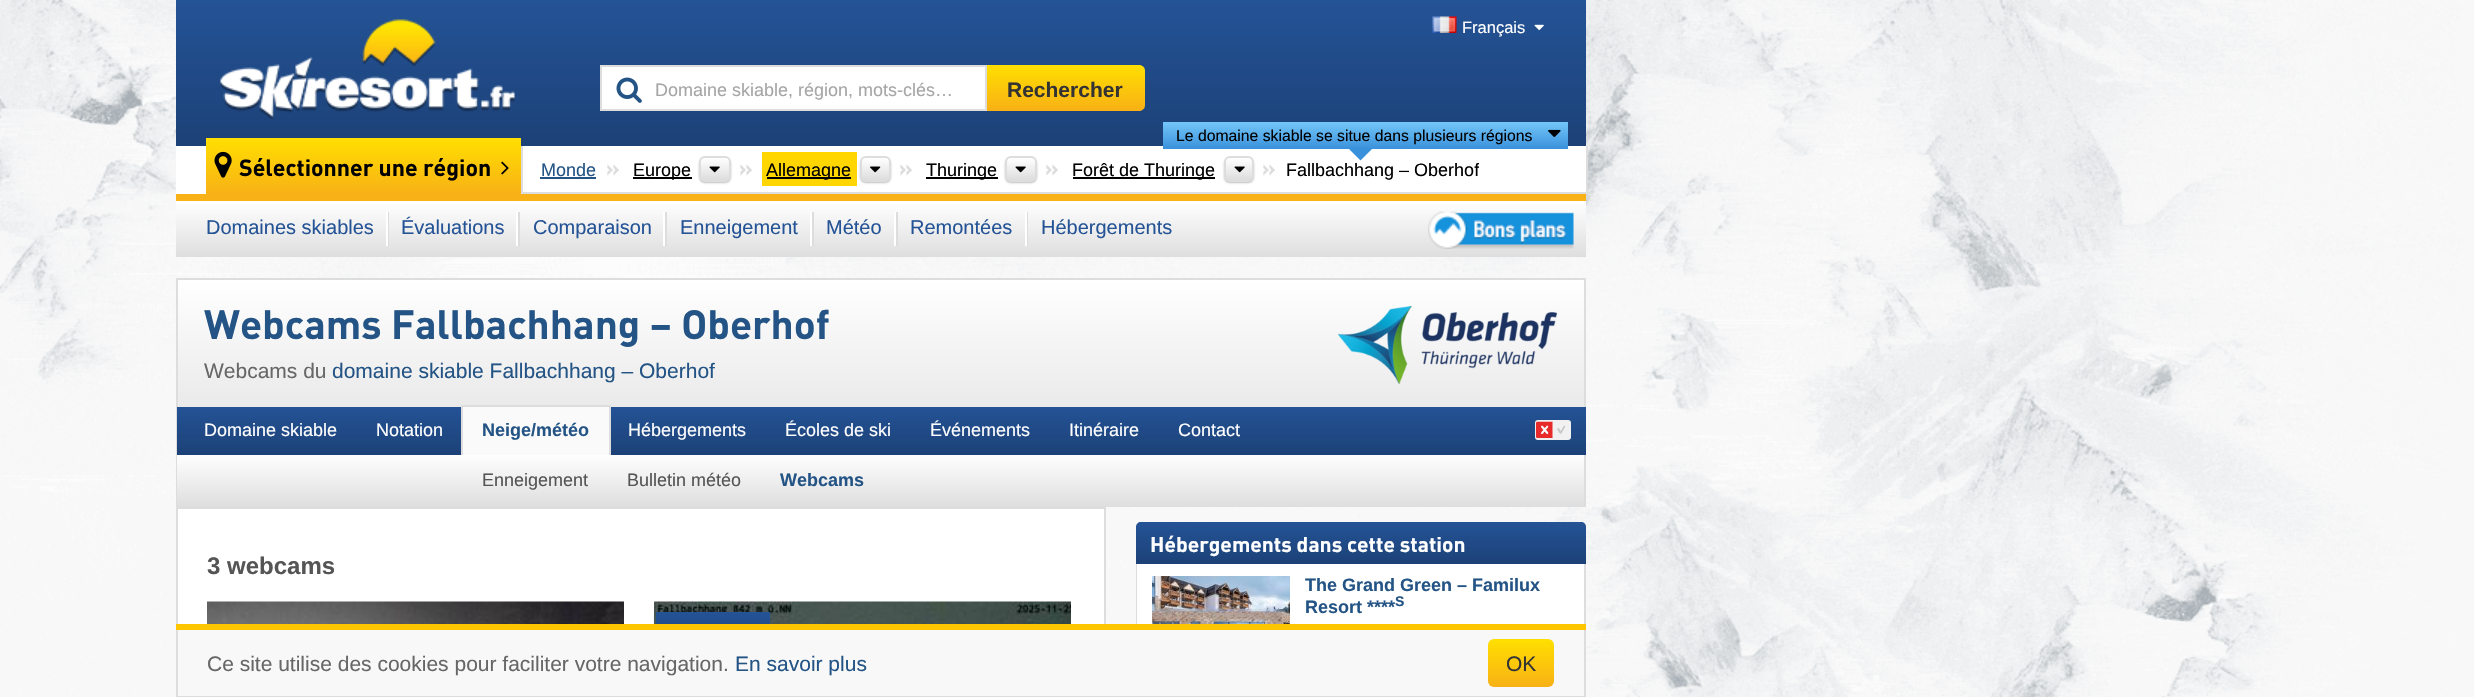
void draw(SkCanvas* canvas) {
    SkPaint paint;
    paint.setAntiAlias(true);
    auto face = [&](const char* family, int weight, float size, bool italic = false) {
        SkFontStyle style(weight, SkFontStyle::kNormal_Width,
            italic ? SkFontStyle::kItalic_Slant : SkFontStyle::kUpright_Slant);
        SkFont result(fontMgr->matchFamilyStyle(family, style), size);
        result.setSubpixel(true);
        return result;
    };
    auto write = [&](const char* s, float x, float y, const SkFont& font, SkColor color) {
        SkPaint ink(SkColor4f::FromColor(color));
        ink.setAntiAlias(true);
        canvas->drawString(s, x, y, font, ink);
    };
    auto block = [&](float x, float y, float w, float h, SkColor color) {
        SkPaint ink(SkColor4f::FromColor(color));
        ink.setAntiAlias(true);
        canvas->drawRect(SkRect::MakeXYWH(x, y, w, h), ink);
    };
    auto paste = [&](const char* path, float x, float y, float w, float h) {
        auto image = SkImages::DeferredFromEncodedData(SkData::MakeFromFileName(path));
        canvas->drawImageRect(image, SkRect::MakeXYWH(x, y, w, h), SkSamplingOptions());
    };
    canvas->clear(SkColorSetRGB(248, 248, 248));
    paste("pic1.png", 0, 0, 2460, 697);
    {
        const SkColor colors[] = {SkColorSetRGB(36, 83, 150), SkColorSetRGB(28, 65, 119)};
        const float stops[] = {0, 1};
        const SkPoint ends[] = {{881, 0}, {881, 146}};
        paint.setShader(SkGradientShader::MakeLinear(ends, colors, stops, 2, SkTileMode::kClamp));
        paint.setAlpha(255);
    }
    canvas->drawRect(SkRect::MakeXYWH(176, 0, 1410, 146), paint);
    paste("pic2.png", 220, 19, 295, 100);
    paste("pic3.png", 1432, 16, 25, 17);
    auto kFont1 = face("Liberation Sans", 400, 16.5f);
    write("Français", 1462, 33, kFont1, SK_ColorWHITE);
    paste("pic4.png", 1534, 24, 10, 6);
    paint.setShader(nullptr);
    paint.setColor(SK_ColorWHITE);
    canvas->drawRect(SkRect::MakeXYWH(601, 66, 385, 44), paint);
    paint.setStyle(SkPaint::kStroke_Style);
    paint.setStrokeWidth(2);
    paint.setColor(SkColorSetRGB(221, 221, 221));
    canvas->drawRect(SkRect::MakeXYWH(601, 66, 385, 44), paint);
    paste("pic5.png", 616, 77, 26, 26);
    auto kFont2 = face("Liberation Sans", 400, 18);
    write("Domaine skiable, région, mots-clés…", 655, 96, kFont2, SkColorSetRGB(166, 166, 166));
    paint.setStyle(SkPaint::kFill_Style);
    {
        const SkColor colors[] = {SkColorSetRGB(255, 223, 0), SkColorSetRGB(248, 177, 22)};
        const float stops[] = {0, 1};
        const SkPoint ends[] = {{1066, 64}, {1066, 111}};
        paint.setShader(SkGradientShader::MakeLinear(ends, colors, stops, 2, SkTileMode::kClamp));
        paint.setAlpha(255);
    }
    canvas->drawPath(SkPathBuilder().moveTo(987, 65).lineTo(1139, 65).cubicTo(1142.5f, 65, 1145, 67.5f, 1145, 71).lineTo(1145, 105).cubicTo(1145, 108.5f, 1142.5f, 111, 1139, 111).lineTo(987, 111).close().detach(), paint);
    auto kFont3 = face("Liberation Sans", 700, 21);
    write("Rechercher", 1007, 97, kFont3, SkColorSetRGB(51, 51, 51));
    block(176, 146, 30, 48, SK_ColorWHITE);
    block(176, 194, 1410, 7, SkColorSetRGB(248, 177, 22));
    {
        const SkColor colors[] = {SkColorSetRGB(255, 223, 0), SkColorSetRGB(248, 177, 22)};
        const float stops[] = {0, 1};
        const SkPoint ends[] = {{363, 138}, {363, 194}};
        paint.setShader(SkGradientShader::MakeLinear(ends, colors, stops, 2, SkTileMode::kClamp));
        paint.setAlpha(255);
    }
    canvas->drawRect(SkRect::MakeXYWH(206, 138, 315, 56), paint);
    paste("pic6.png", 214, 151, 18, 27);
    auto kFont4 = face("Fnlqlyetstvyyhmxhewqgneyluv", 700, 23.1f);
    write("Sélectionner une région", 239, 176, kFont4, SK_ColorBLACK);
    paste("pic7.png", 501, 161, 8, 14);
    block(523, 146, 1063, 46, SK_ColorWHITE);
    block(1586, 146, 2, 48, SkColorSetRGB(221, 221, 221));
    block(521, 192, 1066, 2, SkColorSetRGB(221, 221, 221));
    block(521, 146, 2, 48, SkColorSetRGB(221, 221, 221));
    write("Monde", 541, 176, kFont2, SkColorSetRGB(35, 84, 133));
    block(540, 177, 56, 2, SkColorSetRGB(35, 84, 133));
    auto kFont5 = face("Fnlqlyetstvyyhmxhewqgneyluv", 700, 22);
    write("»", 606, 176, kFont5, SkColorSetRGB(221, 221, 221));
    block(633, 177, 59, 2, SK_ColorBLACK);
    write("Europe", 633, 176, kFont2, SK_ColorBLACK);
    paint.setShader(nullptr);
    paint.setColor(SkColorSetARGB(64, 0, 0, 0));
    paint.setMaskFilter(SkMaskFilter::MakeBlur(kNormal_SkBlurStyle, 1));
    canvas->drawRoundRect(SkRect::MakeXYWH(699, 158, 32, 25), 6, 6, paint);
    paint.setMaskFilter(nullptr);
    canvas->save();
    canvas->clipPath(SkPathBuilder().moveTo(705, 156).lineTo(725, 156).cubicTo(728.5f, 156, 731, 158.5f, 731, 162).lineTo(731, 176).cubicTo(731, 179.5f, 728.5f, 182, 725, 182).lineTo(705, 182).cubicTo(701.5f, 182, 699, 179.5f, 699, 176).lineTo(699, 162).cubicTo(699, 158.5f, 701.5f, 156, 705, 156).close().detach(), true);
    {
        const SkColor colors[] = {SK_ColorWHITE, SkColorSetRGB(221, 221, 221)};
        const float stops[] = {0, 1};
        const SkPoint ends[] = {{715, 158}, {715, 180}};
        paint.setShader(SkGradientShader::MakeLinear(ends, colors, stops, 2, SkTileMode::kClamp));
        paint.setAlpha(255);
    }
    canvas->drawRect(SkRect::MakeXYWH(699, 158, 32, 22), paint);
    canvas->restore();
    paint.setStyle(SkPaint::kStroke_Style);
    paint.setShader(nullptr);
    paint.setColor(SkColorSetRGB(221, 221, 221));
    canvas->drawRoundRect(SkRect::MakeXYWH(700, 157, 30, 24), 5, 5, paint);
    paste("pic8.png", 709, 166, 11, 7);
    write("»", 739, 176, kFont5, SkColorSetRGB(221, 221, 221));
    block(762, 152, 95, 34, SkColorSetRGB(255, 214, 0));
    block(767, 177, 84, 2, SK_ColorBLACK);
    write("Allemagne", 766, 176, kFont2, SK_ColorBLACK);
    paint.setStyle(SkPaint::kFill_Style);
    paint.setColor(SkColorSetARGB(64, 0, 0, 0));
    paint.setMaskFilter(SkMaskFilter::MakeBlur(kNormal_SkBlurStyle, 1));
    canvas->drawRoundRect(SkRect::MakeXYWH(860, 158, 31, 25), 6, 6, paint);
    paint.setMaskFilter(nullptr);
    canvas->save();
    canvas->clipPath(SkPathBuilder().moveTo(866, 156).lineTo(885, 156).cubicTo(888.5f, 156, 891, 158.5f, 891, 162).lineTo(891, 176).cubicTo(891, 179.5f, 888.5f, 182, 885, 182).lineTo(866, 182).cubicTo(862.5f, 182, 860, 179.5f, 860, 176).lineTo(860, 162).cubicTo(860, 158.5f, 862.5f, 156, 866, 156).close().detach(), true);
    {
        const SkColor colors[] = {SK_ColorWHITE, SkColorSetRGB(221, 221, 221)};
        const float stops[] = {0, 1};
        const SkPoint ends[] = {{875, 158}, {875, 180}};
        paint.setShader(SkGradientShader::MakeLinear(ends, colors, stops, 2, SkTileMode::kClamp));
        paint.setAlpha(255);
    }
    canvas->drawRect(SkRect::MakeXYWH(860, 158, 31, 22), paint);
    canvas->restore();
    paint.setStyle(SkPaint::kStroke_Style);
    paint.setShader(nullptr);
    paint.setColor(SkColorSetRGB(221, 221, 221));
    canvas->drawRoundRect(SkRect::MakeXYWH(861, 157, 29, 24), 5, 5, paint);
    paste("pic9.png", 870, 166, 11, 7);
    write("»", 899, 176, kFont5, SkColorSetRGB(221, 221, 221));
    block(926, 177, 72, 2, SK_ColorBLACK);
    write("Thuringe", 926, 176, kFont2, SK_ColorBLACK);
    paint.setStyle(SkPaint::kFill_Style);
    paint.setColor(SkColorSetARGB(64, 0, 0, 0));
    paint.setMaskFilter(SkMaskFilter::MakeBlur(kNormal_SkBlurStyle, 1));
    canvas->drawRoundRect(SkRect::MakeXYWH(1005, 158, 32, 25), 6, 6, paint);
    paint.setMaskFilter(nullptr);
    canvas->save();
    canvas->clipPath(SkPathBuilder().moveTo(1011, 156).lineTo(1031, 156).cubicTo(1034.5f, 156, 1037, 158.5f, 1037, 162).lineTo(1037, 176).cubicTo(1037, 179.5f, 1034.5f, 182, 1031, 182).lineTo(1011, 182).cubicTo(1007.5f, 182, 1005, 179.5f, 1005, 176).lineTo(1005, 162).cubicTo(1005, 158.5f, 1007.5f, 156, 1011, 156).close().detach(), true);
    {
        const SkColor colors[] = {SK_ColorWHITE, SkColorSetRGB(221, 221, 221)};
        const float stops[] = {0, 1};
        const SkPoint ends[] = {{1021, 158}, {1021, 180}};
        paint.setShader(SkGradientShader::MakeLinear(ends, colors, stops, 2, SkTileMode::kClamp));
        paint.setAlpha(255);
    }
    canvas->drawRect(SkRect::MakeXYWH(1005, 158, 32, 22), paint);
    canvas->restore();
    paint.setStyle(SkPaint::kStroke_Style);
    paint.setShader(nullptr);
    paint.setColor(SkColorSetRGB(221, 221, 221));
    canvas->drawRoundRect(SkRect::MakeXYWH(1006, 157, 30, 24), 5, 5, paint);
    paste("pic8.png", 1015, 166, 11, 7);
    write("»", 1045, 176, kFont5, SkColorSetRGB(221, 221, 221));
    block(1073, 177, 142, 2, SK_ColorBLACK);
    write("Forêt de Thuringe", 1072, 176, kFont2, SK_ColorBLACK);
    paint.setStyle(SkPaint::kFill_Style);
    paint.setColor(SkColorSetARGB(64, 0, 0, 0));
    paint.setMaskFilter(SkMaskFilter::MakeBlur(kNormal_SkBlurStyle, 1));
    canvas->drawRoundRect(SkRect::MakeXYWH(1224, 158, 30, 25), 6, 6, paint);
    paint.setMaskFilter(nullptr);
    canvas->save();
    canvas->clipPath(SkPathBuilder().moveTo(1230, 156).lineTo(1248, 156).cubicTo(1251.5f, 156, 1254, 158.5f, 1254, 162).lineTo(1254, 176).cubicTo(1254, 179.5f, 1251.5f, 182, 1248, 182).lineTo(1230, 182).cubicTo(1226.5f, 182, 1224, 179.5f, 1224, 176).lineTo(1224, 162).cubicTo(1224, 158.5f, 1226.5f, 156, 1230, 156).close().detach(), true);
    {
        const SkColor colors[] = {SK_ColorWHITE, SkColorSetRGB(221, 221, 221)};
        const float stops[] = {0, 1};
        const SkPoint ends[] = {{1239, 158}, {1239, 180}};
        paint.setShader(SkGradientShader::MakeLinear(ends, colors, stops, 2, SkTileMode::kClamp));
        paint.setAlpha(255);
    }
    canvas->drawRect(SkRect::MakeXYWH(1224, 158, 30, 22), paint);
    canvas->restore();
    paint.setStyle(SkPaint::kStroke_Style);
    paint.setShader(nullptr);
    paint.setColor(SkColorSetRGB(221, 221, 221));
    canvas->drawRoundRect(SkRect::MakeXYWH(1225, 157, 28, 24), 5, 5, paint);
    paste("pic8.png", 1234, 166, 11, 7);
    paint.setStyle(SkPaint::kFill_Style);
    {
        const SkColor colors[] = {SkColorSetRGB(118, 201, 250), SkColorSetRGB(58, 145, 219)};
        const float stops[] = {0, 1};
        const SkPoint ends[] = {{1365, 121}, {1365, 149}};
        paint.setShader(SkGradientShader::MakeLinear(ends, colors, stops, 2, SkTileMode::kClamp));
        paint.setAlpha(255);
    }
    canvas->drawRect(SkRect::MakeXYWH(1163, 122, 405, 27), paint);
    auto kFont6 = face("Liberation Sans", 400, 15.75f);
    write("Le domaine skiable se situe dans plusieurs régions", 1176, 141, kFont6, SK_ColorBLACK);
    paste("pic10.png", 1548, 129, 13, 8);
    write("»", 1262, 176, kFont5, SkColorSetRGB(221, 221, 221));
    paint.setShader(nullptr);
    paint.setColor(SkColorSetRGB(58, 145, 219));
    canvas->drawPath(SkPathBuilder().moveTo(1348.5f, 148.5f).lineTo(1372.5f, 148.5f).lineTo(1360.5f, 160.5f).close().detach(), paint);
    canvas->save();
    canvas->clipRect(SkRect::MakeXYWH(1286, 155, 193, 30));
    write("Fallbachhang – Oberhof", 1286, 176, kFont2, SK_ColorBLACK);
    canvas->restore();
    {
        const SkColor colors[] = {SK_ColorWHITE, SkColorSetRGB(222, 222, 222)};
        const float stops[] = {0, 1};
        const SkPoint ends[] = {{881, 201}, {881, 257}};
        paint.setShader(SkGradientShader::MakeLinear(ends, colors, stops, 2, SkTileMode::kClamp));
        paint.setAlpha(255);
    }
    canvas->drawRect(SkRect::MakeXYWH(176, 201, 1410, 56), paint);
    auto kFont7 = face("Liberation Sans", 400, 20);
    write("Domaines skiables", 206, 234, kFont7, SkColorSetRGB(36, 83, 150));
    block(388, 212, 1, 34, SkColorSetRGB(221, 221, 221));
    block(386, 212, 2, 34, SK_ColorWHITE);
    write("Évaluations", 401, 234, kFont7, SkColorSetRGB(36, 83, 150));
    block(518, 212, 2, 34, SkColorSetRGB(221, 221, 221));
    block(516, 212, 2, 34, SK_ColorWHITE);
    write("Comparaison", 533, 234, kFont7, SkColorSetRGB(36, 83, 150));
    block(665, 212, 2, 34, SkColorSetRGB(221, 221, 221));
    block(663, 212, 2, 34, SK_ColorWHITE);
    write("Enneigement", 680, 234, kFont7, SkColorSetRGB(36, 83, 150));
    block(812, 212, 2, 34, SkColorSetRGB(221, 221, 221));
    block(810, 212, 2, 34, SK_ColorWHITE);
    write("Météo", 826, 234, kFont7, SkColorSetRGB(36, 83, 150));
    block(896, 212, 2, 34, SkColorSetRGB(221, 221, 221));
    block(894, 212, 2, 34, SK_ColorWHITE);
    write("Remontées", 910, 234, kFont7, SkColorSetRGB(36, 83, 150));
    block(1027, 212, 1, 34, SkColorSetRGB(221, 221, 221));
    block(1025, 212, 2, 34, SK_ColorWHITE);
    write("Hébergements", 1041, 234, kFont7, SkColorSetRGB(36, 83, 150));
    paste("pic11.png", 1428, 211, 146, 38);
    {
        const SkColor colors[] = {SK_ColorWHITE, SkColorSetRGB(234, 234, 234)};
        const float stops[] = {0, 1};
        const SkPoint ends[] = {{881, 279}, {881, 407}};
        paint.setShader(SkGradientShader::MakeLinear(ends, colors, stops, 2, SkTileMode::kClamp));
        paint.setAlpha(255);
    }
    canvas->drawRect(SkRect::MakeXYWH(178, 280, 1406, 127), paint);
    block(176, 278, 1410, 2, SkColorSetRGB(221, 221, 221));
    block(1584, 278, 2, 129, SkColorSetRGB(221, 221, 221));
    block(176, 278, 2, 129, SkColorSetRGB(221, 221, 221));
    auto kFont8 = face("Fnlqlyetstvyyhmxhewqgneyluv", 700, 40.5f);
    write("Webcams Fallbachhang – Oberhof", 204, 339, kFont8, SkColorSetRGB(35, 84, 133));
    auto kFont9 = face("Liberation Sans", 400, 21);
    write("Webcams du", 204, 378, kFont9, SkColorSetRGB(103, 103, 103));
    write("domaine skiable Fallbachhang – Oberhof", 332, 378, kFont9, SkColorSetRGB(35, 84, 133));
    paste("pic12.png", 1338, 306, 219, 78);
    block(1584, 455, 2, 52, SkColorSetRGB(221, 221, 221));
    block(176, 407, 1, 100, SkColorSetRGB(221, 221, 221));
    {
        const SkColor colors[] = {SkColorSetRGB(36, 83, 150), SkColorSetRGB(28, 65, 119)};
        const float stops[] = {0, 1};
        const SkPoint ends[] = {{881, 406}, {881, 455}};
        paint.setShader(SkGradientShader::MakeLinear(ends, colors, stops, 2, SkTileMode::kClamp));
        paint.setAlpha(255);
    }
    canvas->drawRect(SkRect::MakeXYWH(177, 407, 1409, 48), paint);
    write("Domaine skiable", 204, 436, kFont2, SK_ColorWHITE);
    write("Notation", 376, 436, kFont2, SK_ColorWHITE);
    write("Écoles de ski", 785, 436, kFont2, SK_ColorWHITE);
    write("Événements", 930, 436, kFont2, SK_ColorWHITE);
    block(463, 407, 146, 48, SkColorSetRGB(250, 250, 250));
    block(461, 405, 150, 2, SkColorSetRGB(221, 221, 221));
    block(609, 405, 2, 50, SkColorSetRGB(221, 221, 221));
    block(461, 405, 2, 50, SkColorSetRGB(221, 221, 221));
    auto kFont10 = face("Liberation Sans", 700, 18);
    write("Neige/météo", 482, 436, kFont10, SkColorSetRGB(35, 84, 133));
    {
        const SkColor colors[] = {SK_ColorWHITE, SkColorSetRGB(222, 222, 222)};
        const float stops[] = {0, 1};
        const SkPoint ends[] = {{881, 454}, {881, 507}};
        paint.setShader(SkGradientShader::MakeLinear(ends, colors, stops, 2, SkTileMode::kClamp));
        paint.setAlpha(255);
    }
    canvas->drawRect(SkRect::MakeXYWH(177, 455, 1407, 52), paint);
    write("Enneigement", 482, 486, kFont2, SkColorSetRGB(85, 85, 85));
    write("Bulletin météo", 627, 486, kFont2, SkColorSetRGB(85, 85, 85));
    write("Webcams", 780, 486, kFont10, SkColorSetRGB(35, 84, 133));
    write("Hébergements", 628, 436, kFont2, SK_ColorWHITE);
    write("Itinéraire", 1069, 436, kFont2, SK_ColorWHITE);
    write("Contact", 1178, 436, kFont2, SK_ColorWHITE);
    paint.setShader(nullptr);
    paint.setColor(SkColorSetRGB(241, 241, 241));
    canvas->drawRoundRect(SkRect::MakeXYWH(1536, 421, 34, 18), 2, 2, paint);
    paint.setStyle(SkPaint::kStroke_Style);
    canvas->drawRoundRect(SkRect::MakeXYWH(1536, 421, 34, 18), 2, 2, paint);
    paste("pic13.png", 1536, 421, 30, 17);
    block(178, 509, 926, 115, SK_ColorWHITE);
    paint.setColor(SkColorSetRGB(221, 221, 221));
    canvas->drawRect(SkRect::MakeXYWH(177, 508, 928, 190), paint);
    auto kFont11 = face("Liberation Sans", 700, 24);
    write("3 webcams", 207, 574, kFont11, SkColorSetRGB(85, 85, 85));
    paste("pic14.png", 207, 601, 417, 23);
    paste("pic15.png", 654, 601, 417, 23);
    paint.setStyle(SkPaint::kFill_Style);
    paint.setColor(SkColorSetARGB(77, 36, 83, 150));
    paint.setMaskFilter(SkMaskFilter::MakeBlur(kNormal_SkBlurStyle, 2));
    canvas->drawRect(SkRect::MakeXYWH(656, 614, 114, 42), paint);
    paint.setMaskFilter(nullptr);
    {
        const SkColor colors[] = {SkColorSetRGB(36, 83, 150), SkColorSetRGB(28, 65, 119)};
        const float stops[] = {0, 1};
        const SkPoint ends[] = {{713, 612}, {713, 654}};
        paint.setShader(SkGradientShader::MakeLinear(ends, colors, stops, 2, SkTileMode::kClamp));
        paint.setAlpha(255);
    }
    canvas->drawRect(SkRect::MakeXYWH(656, 612, 114, 12), paint);
    {
        const SkColor colors[] = {SkColorSetRGB(36, 83, 150), SkColorSetRGB(28, 65, 119)};
        const float stops[] = {0, 1};
        const SkPoint ends[] = {{1361, 522}, {1361, 564}};
        paint.setShader(SkGradientShader::MakeLinear(ends, colors, stops, 2, SkTileMode::kClamp));
        paint.setAlpha(255);
    }
    canvas->drawPath(SkPathBuilder().moveTo(1141, 522).lineTo(1581, 522).cubicTo(1584, 522, 1586, 524, 1586, 527).lineTo(1586, 564).lineTo(1136, 564).lineTo(1136, 527).cubicTo(1136, 524, 1138, 522, 1141, 522).close().detach(), paint);
    auto kFont12 = face("Fnlqlyetstvyyhmxhewqgneyluv", 700, 21);
    write("Hébergements dans cette station", 1150, 552, kFont12, SK_ColorWHITE);
    block(1584, 564, 2, 60, SkColorSetRGB(221, 221, 221));
    block(1136, 564, 1, 60, SkColorSetRGB(221, 221, 221));
    block(1137, 564, 447, 60, SK_ColorWHITE);
    paste("pic16.png", 1152, 576, 138, 48);
    write("The Grand Green – Familux", 1305, 591, kFont10, SkColorSetRGB(35, 84, 133));
    write("Resort ****", 1305, 613, kFont10, SkColorSetRGB(35, 84, 133));
    auto kFont13 = face("Liberation Sans", 700, 14);
    write("S", 1395, 606, kFont13, SkColorSetRGB(35, 84, 133));
    block(176, 624, 1410, 6, SkColorSetRGB(255, 198, 0));
    block(179, 630, 1405, 66, SkColorSetRGB(248, 248, 248));
    block(1584, 630, 2, 67, SkColorSetRGB(221, 221, 221));
    block(176, 696, 1410, 1, SkColorSetRGB(221, 221, 221));
    write("Ce site utilise des cookies pour faciliter votre navigation.", 207, 671, kFont9, SkColorSetRGB(103, 103, 103));
    write("En savoir plus", 735, 671, kFont9, SkColorSetRGB(35, 84, 133));
    {
        const SkColor colors[] = {SkColorSetRGB(255, 223, 0), SkColorSetRGB(248, 177, 22)};
        const float stops[] = {0, 1};
        const SkPoint ends[] = {{1521, 639}, {1521, 687}};
        paint.setShader(SkGradientShader::MakeLinear(ends, colors, stops, 2, SkTileMode::kClamp));
        paint.setAlpha(255);
    }
    canvas->drawRoundRect(SkRect::MakeXYWH(1488, 639, 66, 48), 6, 6, paint);
    write("OK", 1506, 671, kFont9, SkColorSetRGB(51, 51, 51));
}
